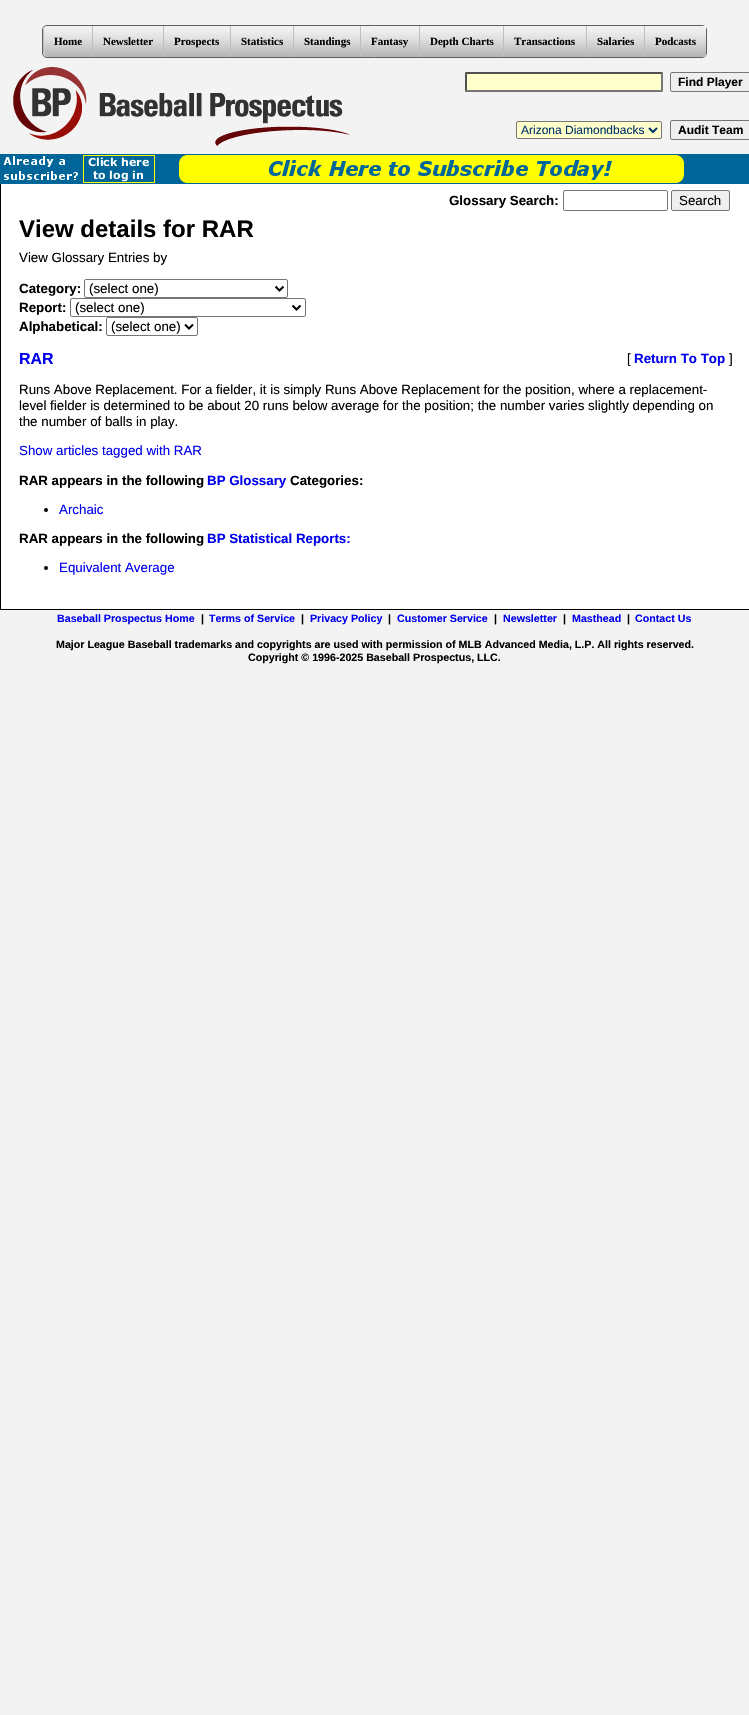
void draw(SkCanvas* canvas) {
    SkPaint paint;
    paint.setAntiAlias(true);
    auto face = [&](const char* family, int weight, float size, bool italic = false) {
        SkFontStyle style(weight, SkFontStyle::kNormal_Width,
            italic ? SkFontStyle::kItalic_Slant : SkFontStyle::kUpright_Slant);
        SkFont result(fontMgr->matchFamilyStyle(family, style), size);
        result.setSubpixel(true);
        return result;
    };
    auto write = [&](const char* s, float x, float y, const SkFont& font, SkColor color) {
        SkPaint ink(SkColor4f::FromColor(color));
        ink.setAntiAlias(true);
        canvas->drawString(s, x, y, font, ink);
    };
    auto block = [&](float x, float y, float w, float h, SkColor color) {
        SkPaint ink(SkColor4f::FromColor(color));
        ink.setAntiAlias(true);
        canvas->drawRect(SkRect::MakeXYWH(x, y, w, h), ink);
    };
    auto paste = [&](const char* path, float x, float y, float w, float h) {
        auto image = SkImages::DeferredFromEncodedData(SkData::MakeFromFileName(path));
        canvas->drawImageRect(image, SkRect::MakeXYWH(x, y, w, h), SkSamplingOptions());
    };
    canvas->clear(SkColorSetRGB(243, 243, 243));
    paint.setColor(SkColorSetRGB(222, 222, 222));
    canvas->drawRoundRect(SkRect::MakeXYWH(42.5f, 25.5f, 664, 32), 4.5f, 4.5f, paint);
    paint.setStyle(SkPaint::kStroke_Style);
    paint.setStrokeWidth(1);
    paint.setColor(SkColorSetRGB(95, 95, 95));
    canvas->drawRoundRect(SkRect::MakeXYWH(42.5f, 25.5f, 664, 32), 4.5f, 4.5f, paint);
    paint.setStyle(SkPaint::kFill_Style);
    paint.setColor(SkColorSetRGB(170, 170, 170));
    canvas->drawPath(SkPathBuilder().moveTo(48, 26).lineTo(92, 26).lineTo(92, 57).lineTo(48, 57).cubicTo(46, 57, 44, 55, 44, 52).lineTo(44, 31).cubicTo(44, 28, 46, 26, 48, 26).close().detach(), paint);
    paste("pic1.png", 43, 26, 49, 31);
    block(43, 29, 1, 26, SkColorSetRGB(192, 192, 192));
    auto kFont1 = face("Liberation Serif", 700, 11);
    write("Home", 54, 45, kFont1, SK_ColorBLACK);
    block(93, 26, 70, 31, SkColorSetRGB(170, 170, 170));
    paste("pic2.png", 93, 26, 70, 31);
    block(92, 26, 1, 31, SkColorSetRGB(192, 192, 192));
    write("Newsletter", 103, 45, kFont1, SK_ColorBLACK);
    block(164, 26, 66, 31, SkColorSetRGB(170, 170, 170));
    paste("pic3.png", 164, 26, 66, 31);
    block(163, 26, 1, 31, SkColorSetRGB(192, 192, 192));
    write("Prospects", 174, 45, kFont1, SK_ColorBLACK);
    block(231, 26, 62, 31, SkColorSetRGB(170, 170, 170));
    paste("pic4.png", 231, 26, 62, 31);
    block(230, 26, 1, 31, SkColorSetRGB(192, 192, 192));
    write("Statistics", 241, 45, kFont1, SK_ColorBLACK);
    block(294, 26, 66, 31, SkColorSetRGB(170, 170, 170));
    paste("pic3.png", 294, 26, 66, 31);
    block(293, 26, 1, 31, SkColorSetRGB(192, 192, 192));
    write("Standings", 304, 45, kFont1, SK_ColorBLACK);
    block(361, 26, 58, 31, SkColorSetRGB(170, 170, 170));
    paste("pic5.png", 361, 26, 58, 31);
    block(360, 26, 1, 31, SkColorSetRGB(192, 192, 192));
    write("Fantasy", 371, 45, kFont1, SK_ColorBLACK);
    block(420, 26, 83, 31, SkColorSetRGB(170, 170, 170));
    paste("pic6.png", 420, 26, 83, 31);
    block(419, 26, 1, 31, SkColorSetRGB(192, 192, 192));
    write("Depth Charts", 430, 45, kFont1, SK_ColorBLACK);
    block(504, 26, 82, 31, SkColorSetRGB(170, 170, 170));
    paste("pic7.png", 504, 26, 82, 31);
    block(503, 26, 1, 31, SkColorSetRGB(192, 192, 192));
    write("Transactions", 514, 45, kFont1, SK_ColorBLACK);
    block(587, 26, 57, 31, SkColorSetRGB(170, 170, 170));
    paste("pic8.png", 587, 26, 57, 31);
    block(586, 26, 1, 31, SkColorSetRGB(192, 192, 192));
    write("Salaries", 597, 45, kFont1, SK_ColorBLACK);
    block(645, 26, 61, 31, SkColorSetRGB(170, 170, 170));
    paste("pic9.png", 645, 26, 61, 31);
    block(644, 26, 1, 31, SkColorSetRGB(192, 192, 192));
    write("Podcasts", 655, 45, kFont1, SK_ColorBLACK);
    paste("pic10.png", 13, 67, 337, 79);
    block(465, 72, 198, 20, SkColorSetRGB(255, 255, 204));
    paint.setColor(SkColorSetRGB(79, 79, 79));
    canvas->drawPath(SkPathBuilder().moveTo(465, 72).lineTo(663, 72).lineTo(661, 74).lineTo(467, 74).close().detach(), paint);
    paint.setColor(SkColorSetRGB(118, 118, 118));
    canvas->drawPath(SkPathBuilder().moveTo(663, 72).lineTo(663, 92).lineTo(661, 90).lineTo(661, 74).close().detach(), paint);
    canvas->drawPath(SkPathBuilder().moveTo(663, 92).lineTo(465, 92).lineTo(467, 90).lineTo(661, 90).close().detach(), paint);
    paint.setColor(SkColorSetRGB(79, 79, 79));
    canvas->drawPath(SkPathBuilder().moveTo(465, 92).lineTo(465, 72).lineTo(467, 74).lineTo(467, 90).close().detach(), paint);
    paint.setColor(SkColorSetRGB(239, 239, 239));
    canvas->drawRoundRect(SkRect::MakeXYWH(670.5f, 72.5f, 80, 19), 1.5f, 1.5f, paint);
    paint.setStyle(SkPaint::kStroke_Style);
    paint.setColor(SkColorSetRGB(118, 118, 118));
    canvas->drawRoundRect(SkRect::MakeXYWH(670.5f, 72.5f, 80, 19), 1.5f, 1.5f, paint);
    auto kFont2 = face("Liberation Sans", 700, 12);
    write("Find Player", 678, 86, kFont2, SK_ColorBLACK);
    paint.setStyle(SkPaint::kFill_Style);
    paint.setColor(SkColorSetRGB(255, 255, 204));
    canvas->drawRoundRect(SkRect::MakeXYWH(516.5f, 121.5f, 145, 17), 1.5f, 1.5f, paint);
    paint.setStyle(SkPaint::kStroke_Style);
    paint.setColor(SkColorSetRGB(118, 118, 118));
    canvas->drawRoundRect(SkRect::MakeXYWH(516.5f, 121.5f, 145, 17), 1.5f, 1.5f, paint);
    paint.setStrokeWidth(2);
    paint.setColor(SkColorSetRGB(0, 51, 102));
    canvas->drawPath(SkPathBuilder().moveTo(649, 128).lineTo(653, 132).lineTo(657, 128).detach(), paint);
    auto kFont3 = face("Liberation Sans", 400, 12);
    write("Arizona Diamondbacks", 521, 134, kFont3, SkColorSetRGB(0, 51, 102));
    paint.setStyle(SkPaint::kFill_Style);
    paint.setColor(SkColorSetRGB(239, 239, 239));
    canvas->drawRoundRect(SkRect::MakeXYWH(670.5f, 120.5f, 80, 19), 1.5f, 1.5f, paint);
    paint.setStyle(SkPaint::kStroke_Style);
    paint.setStrokeWidth(1);
    paint.setColor(SkColorSetRGB(118, 118, 118));
    canvas->drawRoundRect(SkRect::MakeXYWH(670.5f, 120.5f, 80, 19), 1.5f, 1.5f, paint);
    write("Audit Team", 678, 134, kFont2, SK_ColorBLACK);
    block(0, 154, 749, 30, SkColorSetRGB(0, 102, 153));
    paste("pic11.png", 3, 155, 152, 28);
    paste("pic12.png", 179, 155, 505, 28);
    block(1, 184, 748, 425, SK_ColorWHITE);
    block(0, 609, 749, 1, SK_ColorBLACK);
    block(0, 184, 1, 426, SK_ColorBLACK);
    auto kFont4 = face("Liberation Sans", 700, 13.33f);
    write("Glossary Search:", 449, 205, kFont4, SK_ColorBLACK);
    canvas->drawRoundRect(SkRect::MakeXYWH(563.5f, 190.5f, 104, 20), 1.5f, 1.5f, paint);
    paint.setStyle(SkPaint::kFill_Style);
    paint.setColor(SkColorSetRGB(239, 239, 239));
    canvas->drawRoundRect(SkRect::MakeXYWH(671.5f, 190.5f, 58, 20), 1.5f, 1.5f, paint);
    paint.setStyle(SkPaint::kStroke_Style);
    paint.setColor(SkColorSetRGB(118, 118, 118));
    canvas->drawRoundRect(SkRect::MakeXYWH(671.5f, 190.5f, 58, 20), 1.5f, 1.5f, paint);
    auto kFont5 = face("Liberation Sans", 400, 13.33f);
    write("Search", 679, 205, kFont5, SK_ColorBLACK);
    auto kFont6 = face("Liberation Sans", 700, 24);
    write("View details for RAR", 19, 237, kFont6, SK_ColorBLACK);
    write("View Glossary Entries by", 19, 262, kFont5, SK_ColorBLACK);
    write("Category:", 19, 293, kFont4, SK_ColorBLACK);
    canvas->drawRoundRect(SkRect::MakeXYWH(84.5f, 279.5f, 203, 18), 1.5f, 1.5f, paint);
    paint.setStrokeWidth(2);
    paint.setColor(SK_ColorBLACK);
    canvas->drawPath(SkPathBuilder().moveTo(275.5f, 286.5f).lineTo(279.5f, 290.5f).lineTo(283.5f, 286.5f).detach(), paint);
    write("(select one)", 89, 293, kFont5, SK_ColorBLACK);
    write("Report:", 19, 312, kFont4, SK_ColorBLACK);
    paint.setStrokeWidth(1);
    paint.setColor(SkColorSetRGB(118, 118, 118));
    canvas->drawRoundRect(SkRect::MakeXYWH(70.5f, 298.5f, 235, 18), 1.5f, 1.5f, paint);
    paint.setStrokeWidth(2);
    paint.setColor(SK_ColorBLACK);
    canvas->drawPath(SkPathBuilder().moveTo(292.5f, 305.5f).lineTo(296.5f, 309.5f).lineTo(300.5f, 305.5f).detach(), paint);
    write("(select one)", 75, 312, kFont5, SK_ColorBLACK);
    write("Alphabetical:", 19, 331, kFont4, SK_ColorBLACK);
    paint.setStrokeWidth(1);
    paint.setColor(SkColorSetRGB(118, 118, 118));
    canvas->drawRoundRect(SkRect::MakeXYWH(106.5f, 317.5f, 91, 18), 1.5f, 1.5f, paint);
    paint.setStrokeWidth(2);
    paint.setColor(SK_ColorBLACK);
    canvas->drawPath(SkPathBuilder().moveTo(185, 324.5f).lineTo(189, 328.5f).lineTo(193, 324.5f).detach(), paint);
    write("(select one)", 111, 331, kFont5, SK_ColorBLACK);
    auto kFont7 = face("Liberation Sans", 700, 16);
    write("RAR", 19, 364, kFont7, SkColorSetRGB(0, 0, 238));
    write("[", 627, 363, kFont5, SK_ColorBLACK);
    write("Return To Top", 634, 363, kFont4, SkColorSetRGB(0, 0, 238));
    write("]", 729, 363, kFont5, SK_ColorBLACK);
    write("Runs Above Replacement. For a fielder, it is simply Runs Above Replacement for the position, where a replacement-", 19, 394, kFont5, SK_ColorBLACK);
    write("level fielder is determined to be about 20 runs below average for the position; the number varies slightly depending on", 19, 410, kFont5, SK_ColorBLACK);
    write("the number of balls in play.", 19, 426, kFont5, SK_ColorBLACK);
    write("Show articles tagged with RAR", 19, 455, kFont5, SkColorSetRGB(0, 0, 238));
    write("RAR appears in the following", 19, 485, kFont4, SK_ColorBLACK);
    write("BP Glossary", 207, 485, kFont4, SkColorSetRGB(0, 0, 238));
    write("Categories:", 290, 485, kFont4, SK_ColorBLACK);
    paint.setStyle(SkPaint::kFill_Style);
    canvas->drawCircle(46, 510, 2, paint);
    write("Archaic", 59, 514, kFont5, SkColorSetRGB(0, 0, 238));
    write("RAR appears in the following", 19, 543, kFont4, SK_ColorBLACK);
    write("BP Statistical Reports:", 207, 543, kFont4, SkColorSetRGB(0, 0, 238));
    canvas->drawCircle(46, 568, 2, paint);
    write("Equivalent Average", 59, 572, kFont5, SkColorSetRGB(0, 0, 238));
    auto kFont8 = face("Liberation Sans", 700, 10.67f);
    write("Baseball Prospectus Home", 57, 622, kFont8, SkColorSetRGB(0, 0, 238));
    write("|", 201, 622, kFont8, SK_ColorBLACK);
    write("Terms of Service", 209, 622, kFont8, SkColorSetRGB(0, 0, 238));
    write("|", 301, 622, kFont8, SK_ColorBLACK);
    write("Privacy Policy", 310, 622, kFont8, SkColorSetRGB(0, 0, 238));
    write("|", 388, 622, kFont8, SK_ColorBLACK);
    write("Customer Service", 397, 622, kFont8, SkColorSetRGB(0, 0, 238));
    write("|", 494, 622, kFont8, SK_ColorBLACK);
    write("Newsletter", 503, 622, kFont8, SkColorSetRGB(0, 0, 238));
    write("|", 563, 622, kFont8, SK_ColorBLACK);
    write("Masthead", 572, 622, kFont8, SkColorSetRGB(0, 0, 238));
    write("|", 627, 622, kFont8, SK_ColorBLACK);
    write("Contact Us", 635, 622, kFont8, SkColorSetRGB(0, 0, 238));
    write("Major League Baseball trademarks and copyrights are used with permission of MLB Advanced Media, L.P. All rights reserved.", 56, 648, kFont8, SK_ColorBLACK);
    write("Copyright © 1996-2025 Baseball Prospectus, LLC.", 248, 661, kFont8, SK_ColorBLACK);
}
